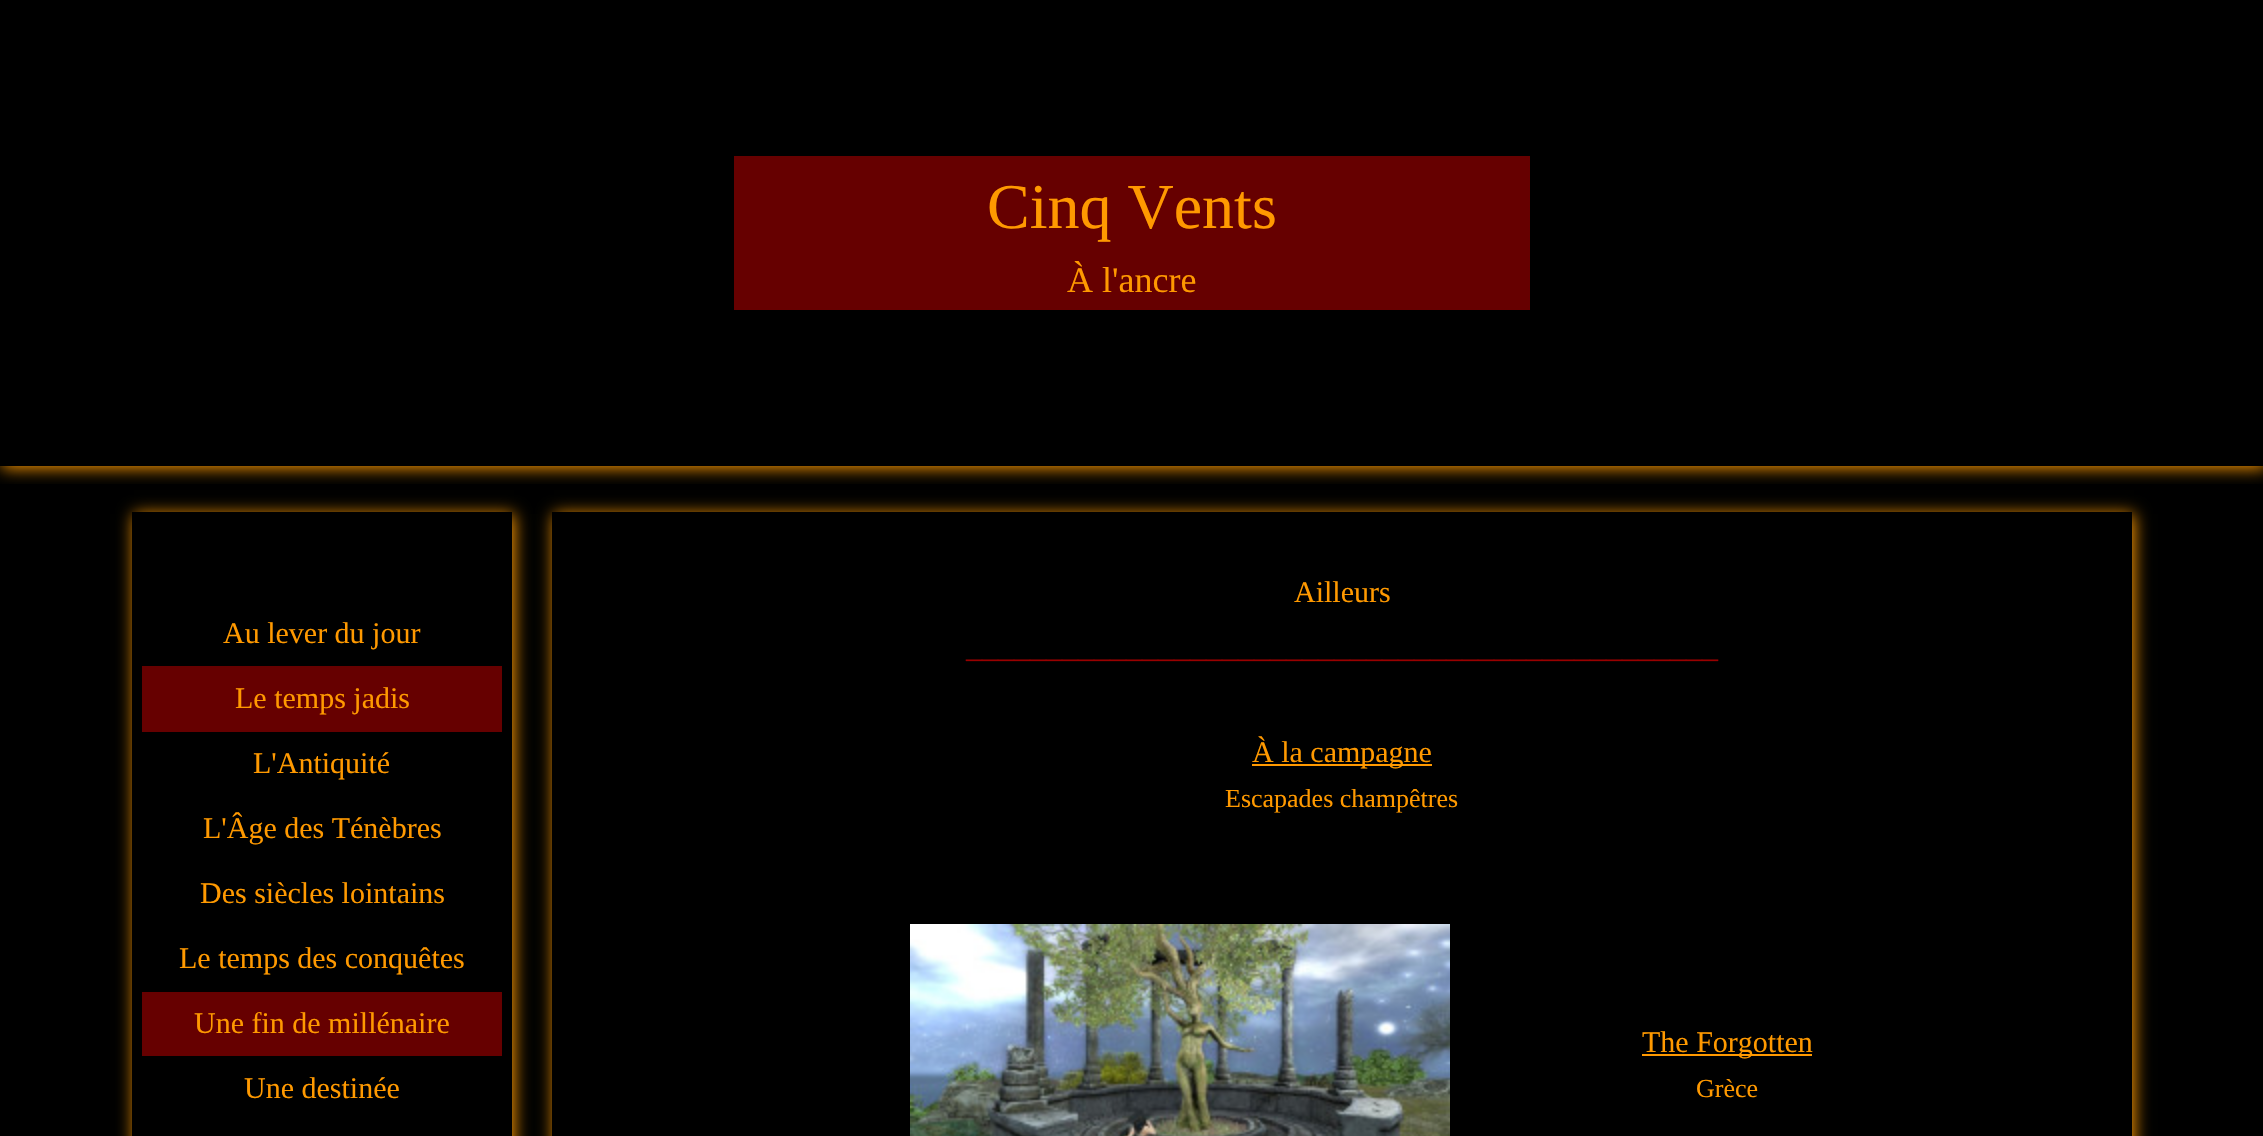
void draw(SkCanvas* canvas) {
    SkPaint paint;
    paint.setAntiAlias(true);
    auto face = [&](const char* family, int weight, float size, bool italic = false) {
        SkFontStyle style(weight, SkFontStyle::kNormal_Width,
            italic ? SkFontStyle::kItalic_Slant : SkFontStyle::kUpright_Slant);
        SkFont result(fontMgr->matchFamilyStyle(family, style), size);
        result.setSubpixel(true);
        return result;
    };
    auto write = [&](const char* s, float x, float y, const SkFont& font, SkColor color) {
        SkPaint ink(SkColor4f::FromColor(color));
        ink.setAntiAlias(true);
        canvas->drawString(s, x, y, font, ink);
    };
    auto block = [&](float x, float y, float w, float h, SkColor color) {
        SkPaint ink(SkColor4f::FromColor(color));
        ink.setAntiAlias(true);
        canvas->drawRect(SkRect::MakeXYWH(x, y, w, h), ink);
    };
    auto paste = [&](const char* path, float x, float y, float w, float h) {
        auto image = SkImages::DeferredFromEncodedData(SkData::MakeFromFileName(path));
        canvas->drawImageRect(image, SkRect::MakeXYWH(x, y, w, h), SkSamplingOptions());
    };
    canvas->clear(SK_ColorBLACK);
    canvas->save();
    canvas->clipRect(SkRect::MakeXYWH(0, 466, 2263, 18));
    paint.setColor(SkColorSetRGB(255, 153, 0));
    paint.setMaskFilter(SkMaskFilter::MakeBlur(kNormal_SkBlurStyle, 8));
    canvas->drawRect(SkRect::MakeXYWH(2, 2, 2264, 466), paint);
    paint.setMaskFilter(nullptr);
    canvas->restore();
    block(734, 156, 796, 154, SkColorSetRGB(102, 0, 0));
    auto kFont1 = face("Liberation Serif", 400, 64);
    write("Cinq Vents", 987, 228, kFont1, SkColorSetRGB(255, 153, 0));
    auto kFont2 = face("Liberation Serif", 400, 36);
    write("À l'ancre", 1067, 292, kFont2, SkColorSetRGB(255, 153, 0));
    canvas->save();
    canvas->clipPath(SkPathBuilder(SkPathFillType::kEvenOdd).moveTo(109, 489).lineTo(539, 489).lineTo(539, 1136).lineTo(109, 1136).close().moveTo(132, 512).lineTo(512, 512).lineTo(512, 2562).lineTo(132, 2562).close().detach(), true);
    paint.setMaskFilter(SkMaskFilter::MakeBlur(kNormal_SkBlurStyle, 8));
    canvas->drawRect(SkRect::MakeXYWH(134, 514, 380, 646), paint);
    paint.setMaskFilter(nullptr);
    canvas->restore();
    auto kFont3 = face("Liberation Serif", 400, 30);
    write("Au lever du jour", 223, 643, kFont3, SkColorSetRGB(255, 153, 0));
    block(142, 666, 360, 66, SkColorSetRGB(102, 0, 0));
    write("Le temps jadis", 235, 708, kFont3, SkColorSetRGB(255, 153, 0));
    write("L'Antiquité", 253, 773, kFont3, SkColorSetRGB(255, 153, 0));
    write("L'Âge des Ténèbres", 203, 838, kFont3, SkColorSetRGB(255, 153, 0));
    write("Des siècles lointains", 200, 903, kFont3, SkColorSetRGB(255, 153, 0));
    write("Le temps des conquêtes", 179, 968, kFont3, SkColorSetRGB(255, 153, 0));
    block(142, 992, 360, 64, SkColorSetRGB(102, 0, 0));
    write("Une fin de millénaire", 194, 1033, kFont3, SkColorSetRGB(255, 153, 0));
    write("Une destinée", 244, 1098, kFont3, SkColorSetRGB(255, 153, 0));
    canvas->save();
    canvas->clipPath(SkPathBuilder(SkPathFillType::kEvenOdd).moveTo(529, 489).lineTo(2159, 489).lineTo(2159, 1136).lineTo(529, 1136).close().moveTo(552, 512).lineTo(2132, 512).lineTo(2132, 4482).lineTo(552, 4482).close().detach(), true);
    paint.setMaskFilter(SkMaskFilter::MakeBlur(kNormal_SkBlurStyle, 8));
    canvas->drawRect(SkRect::MakeXYWH(554, 514, 1580, 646), paint);
    paint.setMaskFilter(nullptr);
    canvas->restore();
    write("Ailleurs", 1294, 602, kFont3, SkColorSetRGB(255, 153, 0));
    auto kFont4 = face("Liberation Serif", 400, 32);
    write("_______________________________________________", 966, 657, kFont4, SkColorSetRGB(153, 0, 0));
    block(1252, 764, 180, 2, SkColorSetRGB(255, 153, 0));
    write("À la campagne", 1252, 762, kFont3, SkColorSetRGB(255, 153, 0));
    auto kFont5 = face("Liberation Serif", 400, 26);
    write("Escapades champêtres", 1225, 807, kFont5, SkColorSetRGB(255, 153, 0));
    paste("pic1.png", 910, 924, 540, 212);
    block(1642, 1054, 170, 2, SkColorSetRGB(255, 153, 0));
    write("The Forgotten", 1642, 1052, kFont3, SkColorSetRGB(255, 153, 0));
    write("Grèce", 1696, 1097, kFont5, SkColorSetRGB(255, 153, 0));
}
